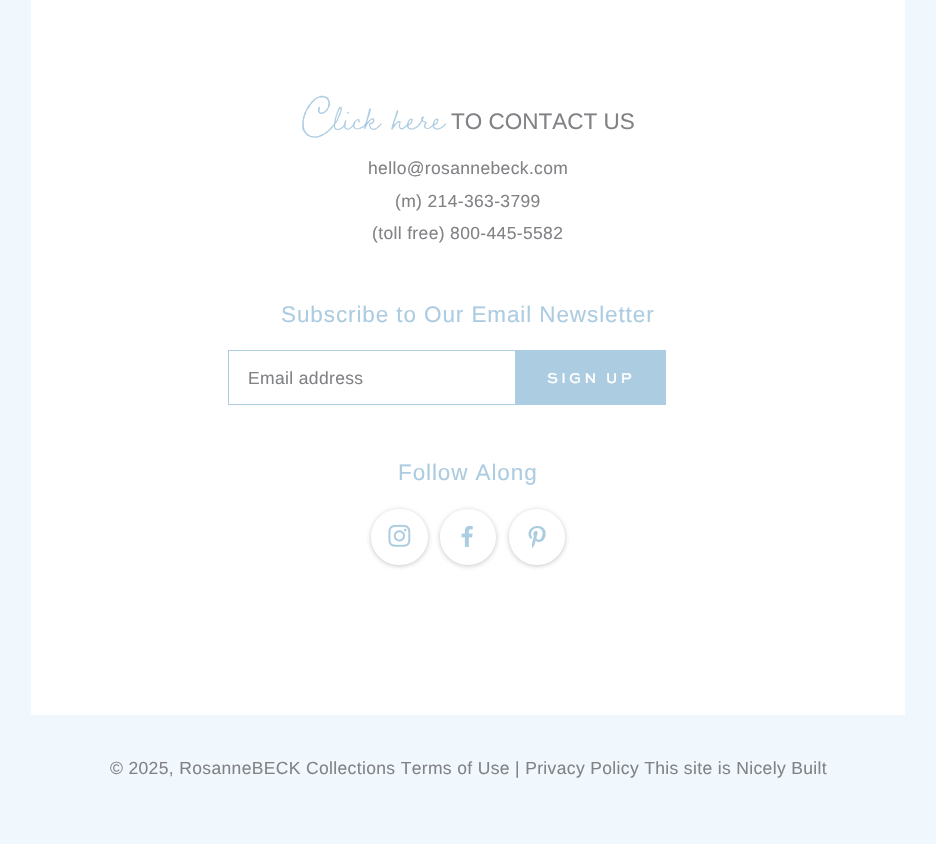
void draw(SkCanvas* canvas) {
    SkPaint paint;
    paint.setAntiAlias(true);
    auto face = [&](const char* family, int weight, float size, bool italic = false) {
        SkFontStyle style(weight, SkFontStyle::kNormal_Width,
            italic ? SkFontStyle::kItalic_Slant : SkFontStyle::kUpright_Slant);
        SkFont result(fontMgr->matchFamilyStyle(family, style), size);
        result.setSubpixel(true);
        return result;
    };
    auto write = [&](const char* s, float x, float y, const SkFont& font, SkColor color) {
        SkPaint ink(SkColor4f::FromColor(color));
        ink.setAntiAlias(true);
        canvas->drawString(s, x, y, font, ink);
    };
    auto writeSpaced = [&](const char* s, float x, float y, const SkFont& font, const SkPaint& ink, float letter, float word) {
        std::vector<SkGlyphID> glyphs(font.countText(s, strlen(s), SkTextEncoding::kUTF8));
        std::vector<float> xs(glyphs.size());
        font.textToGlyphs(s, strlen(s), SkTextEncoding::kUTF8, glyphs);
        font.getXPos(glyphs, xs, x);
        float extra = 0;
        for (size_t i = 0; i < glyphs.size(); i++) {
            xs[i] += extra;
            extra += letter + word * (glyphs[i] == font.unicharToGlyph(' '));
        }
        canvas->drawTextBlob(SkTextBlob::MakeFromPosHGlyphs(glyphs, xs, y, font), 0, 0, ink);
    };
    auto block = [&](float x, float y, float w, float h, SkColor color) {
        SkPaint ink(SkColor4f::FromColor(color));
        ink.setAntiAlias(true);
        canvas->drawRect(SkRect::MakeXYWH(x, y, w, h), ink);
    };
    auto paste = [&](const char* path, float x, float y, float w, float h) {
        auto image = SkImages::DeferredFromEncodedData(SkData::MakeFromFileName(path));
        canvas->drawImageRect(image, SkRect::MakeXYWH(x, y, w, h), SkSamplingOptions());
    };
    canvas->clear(SkColorSetRGB(240, 247, 253));
    block(31, 0, 874, 715, SK_ColorWHITE);
    auto kFont1 = face("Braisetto", 400, 50);
    write("Click here", 302, 129, kFont1, SkColorSetRGB(172, 204, 225));
    auto kFont2 = face("Liberation Sans", 400, 22.5f);
    write("TO CONTACT US", 451, 129, kFont2, SkColorSetRGB(129, 130, 133));
    auto kFont3 = face("Liberation Sans", 400, 17.5f);
    paint.setColor(SkColorSetRGB(129, 130, 133));
    writeSpaced("hello@rosannebeck.com", 368, 174, kFont3, paint, 0.35f, 0);
    writeSpaced("(m) 214-363-3799", 395, 207, kFont3, paint, 0.35f, 0);
    writeSpaced("(toll free) 800-445-5582", 372, 239, kFont3, paint, 0.35f, 0);
    paint.setColor(SkColorSetRGB(172, 204, 225));
    writeSpaced("Subscribe to Our Email Newsletter", 281, 322, kFont2, paint, 0.9f, 0);
    paint.setStyle(SkPaint::kStroke_Style);
    paint.setStrokeWidth(1);
    canvas->drawRect(SkRect::MakeXYWH(228.5f, 350.5f, 287, 54), paint);
    paint.setStyle(SkPaint::kFill_Style);
    paint.setColor(SkColorSetRGB(129, 130, 133));
    writeSpaced("Email address", 248, 384, kFont3, paint, 0.35f, 0);
    block(516, 350, 150, 55, SkColorSetRGB(172, 204, 225));
    auto kFont4 = face("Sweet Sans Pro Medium", 500, 15);
    paint.setColor(SK_ColorWHITE);
    writeSpaced("SIGN UP", 547, 383, kFont4, paint, 3, 0);
    paint.setColor(SkColorSetRGB(172, 204, 225));
    writeSpaced("Follow Along", 398, 480, kFont2, paint, 0.9f, 0);
    canvas->save();
    canvas->clipPath(SkPathBuilder(SkPathFillType::kEvenOdd).moveTo(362, 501).lineTo(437, 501).lineTo(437, 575).lineTo(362, 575).close().moveTo(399, 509).lineTo(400, 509).cubicTo(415.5f, 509, 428, 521.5f, 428, 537).cubicTo(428, 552.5f, 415.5f, 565, 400, 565).lineTo(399, 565).cubicTo(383.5f, 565, 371, 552.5f, 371, 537).cubicTo(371, 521.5f, 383.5f, 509, 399, 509).close().detach(), true);
    paint.setColor(SkColorSetARGB(92, 95, 95, 95));
    paint.setMaskFilter(SkMaskFilter::MakeBlur(kNormal_SkBlurStyle, 2.5f));
    canvas->drawRoundRect(SkRect::MakeXYWH(371, 510, 57, 56), 28, 28, paint);
    paint.setMaskFilter(nullptr);
    canvas->restore();
    paste("pic1.png", 388, 524, 23, 23);
    canvas->save();
    canvas->clipPath(SkPathBuilder(SkPathFillType::kEvenOdd).moveTo(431, 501).lineTo(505, 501).lineTo(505, 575).lineTo(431, 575).close().moveTo(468, 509).cubicTo(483.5f, 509, 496, 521.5f, 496, 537).cubicTo(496, 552.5f, 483.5f, 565, 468, 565).cubicTo(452.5f, 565, 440, 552.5f, 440, 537).cubicTo(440, 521.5f, 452.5f, 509, 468, 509).close().detach(), true);
    paint.setMaskFilter(SkMaskFilter::MakeBlur(kNormal_SkBlurStyle, 2.5f));
    canvas->drawRoundRect(SkRect::MakeXYWH(440, 510, 56, 56), 28, 28, paint);
    paint.setMaskFilter(nullptr);
    canvas->restore();
    paste("pic2.png", 461, 525, 12, 22);
    canvas->save();
    canvas->clipPath(SkPathBuilder(SkPathFillType::kEvenOdd).moveTo(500, 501).lineTo(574, 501).lineTo(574, 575).lineTo(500, 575).close().moveTo(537, 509).cubicTo(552.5f, 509, 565, 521.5f, 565, 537).cubicTo(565, 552.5f, 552.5f, 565, 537, 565).cubicTo(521.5f, 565, 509, 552.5f, 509, 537).cubicTo(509, 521.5f, 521.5f, 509, 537, 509).close().detach(), true);
    paint.setMaskFilter(SkMaskFilter::MakeBlur(kNormal_SkBlurStyle, 2.5f));
    canvas->drawRoundRect(SkRect::MakeXYWH(509, 510, 56, 56), 28, 28, paint);
    paint.setMaskFilter(nullptr);
    canvas->restore();
    paste("pic3.png", 528, 525, 18, 24);
    paint.setColor(SkColorSetRGB(129, 130, 133));
    writeSpaced("© 2025, RosanneBECK Collections Terms of Use | Privacy Policy This site is Nicely Built", 110, 774, kFont3, paint, 0.35f, 0);
}
